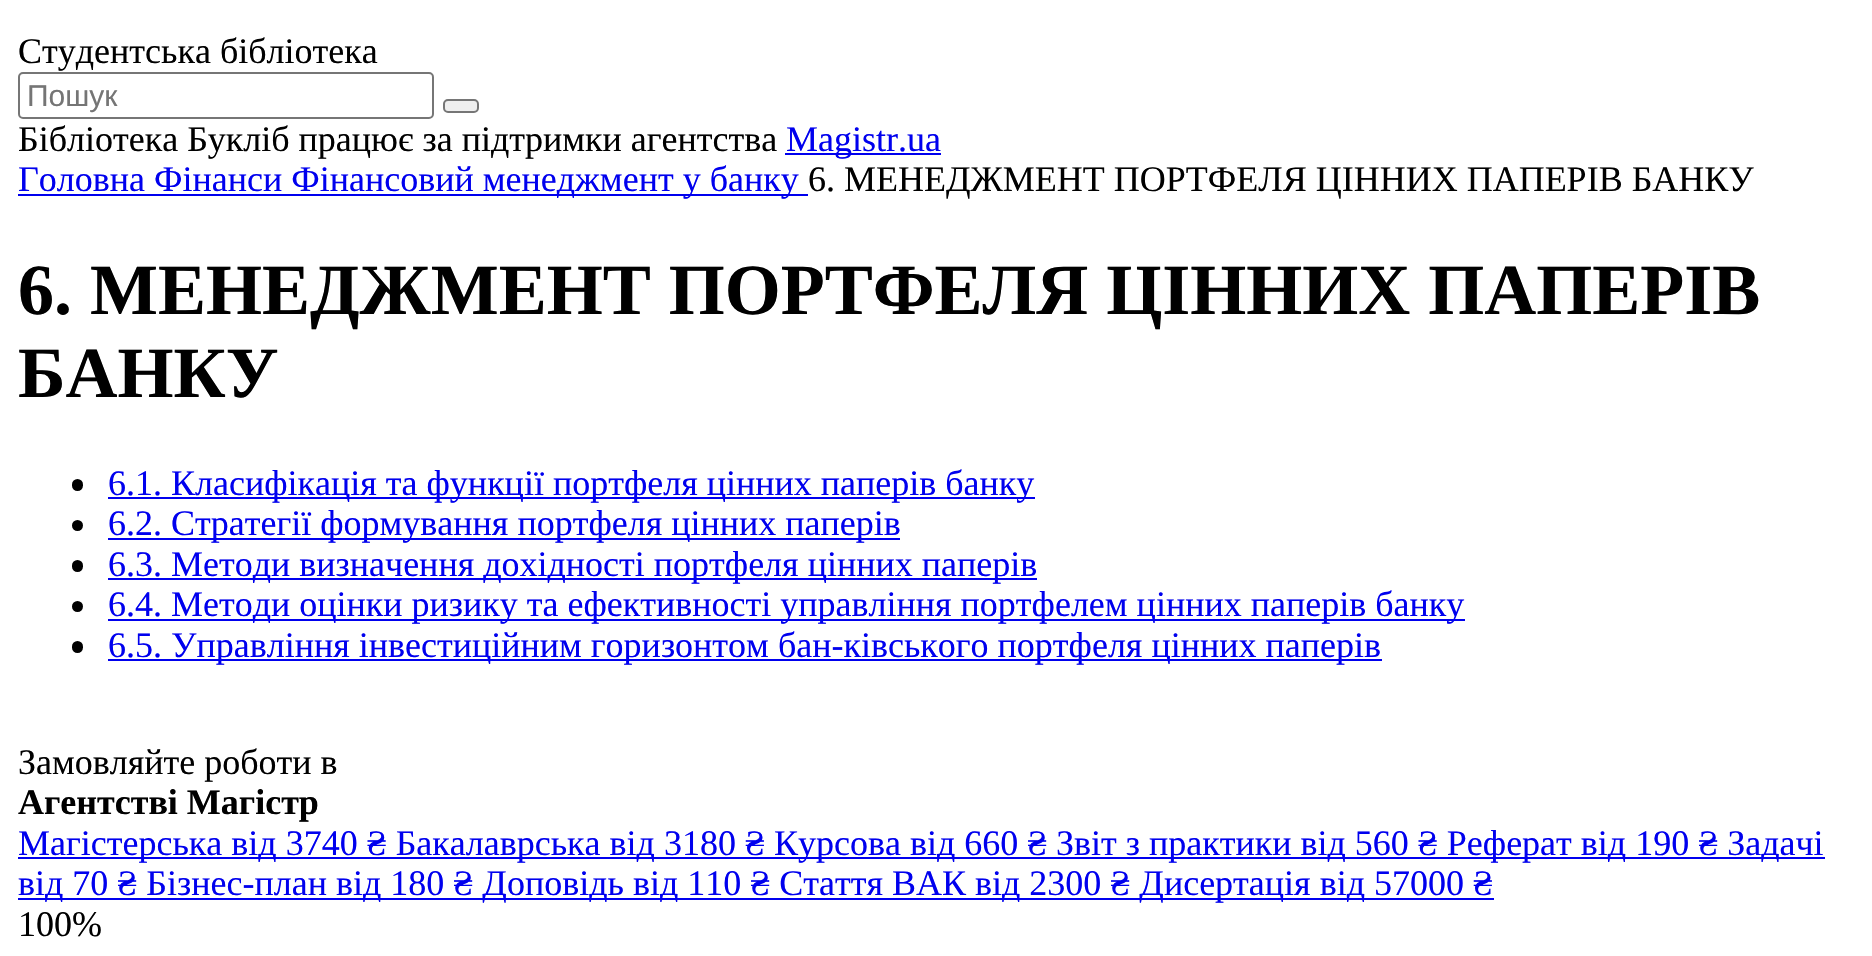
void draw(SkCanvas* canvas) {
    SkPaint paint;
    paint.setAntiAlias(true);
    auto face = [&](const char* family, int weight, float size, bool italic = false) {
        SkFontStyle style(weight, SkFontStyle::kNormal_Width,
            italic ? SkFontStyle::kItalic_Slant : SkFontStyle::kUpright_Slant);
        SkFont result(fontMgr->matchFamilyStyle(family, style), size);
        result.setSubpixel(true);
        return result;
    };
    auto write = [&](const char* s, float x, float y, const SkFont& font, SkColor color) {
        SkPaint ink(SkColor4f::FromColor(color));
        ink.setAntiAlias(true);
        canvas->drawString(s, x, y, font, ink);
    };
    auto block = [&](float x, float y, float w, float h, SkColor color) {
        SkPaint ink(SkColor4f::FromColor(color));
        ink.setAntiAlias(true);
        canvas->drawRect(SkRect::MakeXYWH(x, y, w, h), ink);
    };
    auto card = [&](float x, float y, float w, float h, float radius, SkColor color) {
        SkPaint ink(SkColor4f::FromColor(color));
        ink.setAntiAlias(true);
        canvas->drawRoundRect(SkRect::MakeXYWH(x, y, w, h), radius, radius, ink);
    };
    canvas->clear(SK_ColorWHITE);
    auto kFont1 = face("Liberation Serif", 400, 36);
    write("Студентська бібліотека", 18, 63, kFont1, SK_ColorBLACK);
    paint.setStyle(SkPaint::kStroke_Style);
    paint.setStrokeWidth(2);
    paint.setColor(SkColorSetRGB(118, 118, 118));
    canvas->drawRoundRect(SkRect::MakeXYWH(19, 73, 414, 45), 4, 4, paint);
    auto kFont2 = face("Liberation Sans", 400, 30);
    write("Пошук", 27, 106, kFont2, SkColorSetRGB(117, 117, 117));
    paint.setStyle(SkPaint::kFill_Style);
    paint.setColor(SkColorSetRGB(239, 239, 239));
    canvas->drawRoundRect(SkRect::MakeXYWH(444, 100, 34, 12), 4, 4, paint);
    paint.setStyle(SkPaint::kStroke_Style);
    paint.setColor(SkColorSetRGB(118, 118, 118));
    canvas->drawRoundRect(SkRect::MakeXYWH(444, 100, 34, 12), 4, 4, paint);
    write("Бібліотека Букліб працює за підтримки агентства", 18, 151, kFont1, SK_ColorBLACK);
    block(785, 153, 156, 2, SkColorSetRGB(0, 0, 238));
    write("Magistr.ua", 786, 151, kFont1, SkColorSetRGB(0, 0, 238));
    block(18, 194, 790, 2, SkColorSetRGB(0, 0, 238));
    write("Головна Фінанси Фінансовий менеджмент у банку", 18, 191, kFont1, SkColorSetRGB(0, 0, 238));
    write("6. МЕНЕДЖМЕНТ ПОРТФЕЛЯ ЦІННИХ ПАПЕРІВ БАНКУ", 808, 191, kFont1, SK_ColorBLACK);
    auto kFont3 = face("Liberation Serif", 700, 72);
    write("6. МЕНЕДЖМЕНТ ПОРТФЕЛЯ ЦІННИХ ПАПЕРІВ", 18, 314, kFont3, SK_ColorBLACK);
    write("БАНКУ", 18, 397, kFont3, SK_ColorBLACK);
    card(72, 479, 11, 12, 5.5f, SK_ColorBLACK);
    block(108, 497, 927, 2, SkColorSetRGB(0, 0, 238));
    write("6.1. Класифікація та функції портфеля цінних паперів банку", 108, 495, kFont1, SkColorSetRGB(0, 0, 238));
    paint.setStyle(SkPaint::kFill_Style);
    paint.setColor(SK_ColorBLACK);
    canvas->drawCircle(77.5f, 525.5f, 5.5f, paint);
    block(108, 538, 792, 2, SkColorSetRGB(0, 0, 238));
    write("6.2. Стратегії формування портфеля цінних паперів", 108, 535, kFont1, SkColorSetRGB(0, 0, 238));
    card(72, 560, 11, 12, 5.5f, SK_ColorBLACK);
    block(108, 578, 929, 2, SkColorSetRGB(0, 0, 238));
    write("6.3. Методи визначення дохідності портфеля цінних паперів", 108, 576, kFont1, SkColorSetRGB(0, 0, 238));
    canvas->drawCircle(77.5f, 606.5f, 5.5f, paint);
    block(108, 619, 1357, 2, SkColorSetRGB(0, 0, 238));
    write("6.4. Методи оцінки ризику та ефективності управління портфелем цінних паперів банку", 108, 616, kFont1, SkColorSetRGB(0, 0, 238));
    card(72, 641, 11, 12, 5.5f, SK_ColorBLACK);
    block(108, 659, 1274, 2, SkColorSetRGB(0, 0, 238));
    write("6.5. Управління інвестиційним горизонтом бан-ківського портфеля цінних паперів", 108, 657, kFont1, SkColorSetRGB(0, 0, 238));
    write("Замовляйте роботи в", 18, 774, kFont1, SK_ColorBLACK);
    auto kFont4 = face("Liberation Serif", 700, 36);
    write("Агентстві Магістр", 18, 814, kFont4, SK_ColorBLACK);
    block(18, 857, 882, 2, SkColorSetRGB(0, 0, 238));
    write("Магістерська від 3740 ₴ Бакалаврська від 3180 ₴ Курсова", 18, 855, kFont1, SkColorSetRGB(0, 0, 238));
    block(900, 857, 146, 2, SkColorSetRGB(0, 0, 238));
    write("від 660 ₴", 910, 855, kFont1, SkColorSetRGB(0, 0, 238));
    block(1046, 857, 779, 2, SkColorSetRGB(0, 0, 238));
    write("Звіт з практики від 560 ₴ Реферат від 190 ₴ Задачі", 1056, 855, kFont1, SkColorSetRGB(0, 0, 238));
    block(18, 898, 308, 2, SkColorSetRGB(0, 0, 238));
    write("від 70 ₴ Бізнес-план", 18, 895, kFont1, SkColorSetRGB(0, 0, 238));
    block(326, 898, 639, 2, SkColorSetRGB(0, 0, 238));
    write("від 180 ₴ Доповідь від 110 ₴ Стаття ВАК", 336, 895, kFont1, SkColorSetRGB(0, 0, 238));
    block(965, 898, 529, 2, SkColorSetRGB(0, 0, 238));
    write("від 2300 ₴ Дисертація від 57000 ₴", 975, 895, kFont1, SkColorSetRGB(0, 0, 238));
    write("100%", 18, 936, kFont1, SK_ColorBLACK);
}
